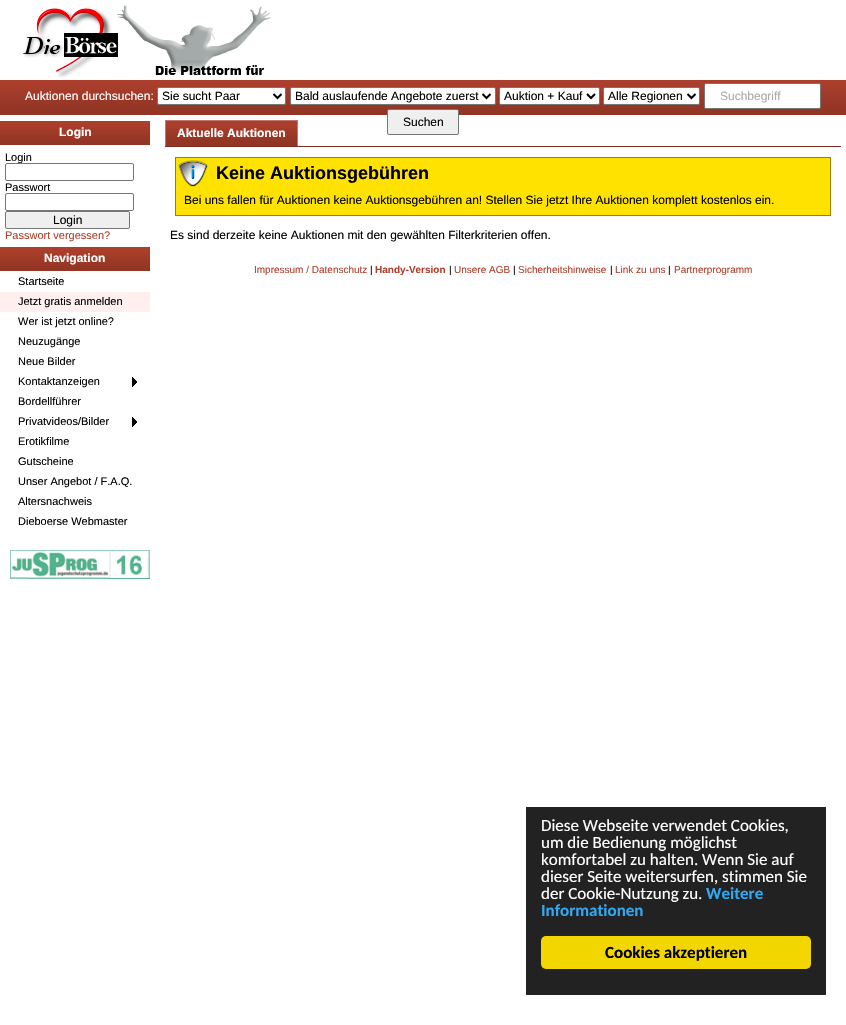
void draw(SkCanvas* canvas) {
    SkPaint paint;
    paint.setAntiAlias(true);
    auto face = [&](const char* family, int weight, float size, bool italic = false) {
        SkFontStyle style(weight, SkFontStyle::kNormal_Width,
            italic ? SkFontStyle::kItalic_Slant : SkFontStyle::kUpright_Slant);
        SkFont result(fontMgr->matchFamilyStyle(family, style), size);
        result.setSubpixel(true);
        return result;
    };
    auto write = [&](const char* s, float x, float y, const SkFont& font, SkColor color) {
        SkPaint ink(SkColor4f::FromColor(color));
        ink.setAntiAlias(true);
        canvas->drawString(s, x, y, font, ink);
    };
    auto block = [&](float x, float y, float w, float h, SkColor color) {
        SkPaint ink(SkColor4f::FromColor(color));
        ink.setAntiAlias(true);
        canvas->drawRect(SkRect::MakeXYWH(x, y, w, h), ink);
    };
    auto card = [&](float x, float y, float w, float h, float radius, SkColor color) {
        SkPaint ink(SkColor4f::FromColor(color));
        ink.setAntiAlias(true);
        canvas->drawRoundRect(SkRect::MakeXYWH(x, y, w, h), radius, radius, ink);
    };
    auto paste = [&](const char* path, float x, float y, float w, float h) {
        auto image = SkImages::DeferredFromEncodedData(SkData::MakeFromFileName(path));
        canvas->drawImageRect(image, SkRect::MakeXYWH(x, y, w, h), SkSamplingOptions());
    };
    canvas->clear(SK_ColorWHITE);
    paste("pic1.png", 23, 5, 248, 73);
    paste("pic2.png", 0, 80, 846, 35);
    auto kFont1 = face("Liberation Sans", 400, 12);
    write("Auktionen durchsuchen:", 25, 100, kFont1, SK_ColorWHITE);
    paint.setColor(SK_ColorWHITE);
    canvas->drawRoundRect(SkRect::MakeXYWH(157.5f, 87.5f, 128, 17), 1.5f, 1.5f, paint);
    paint.setStyle(SkPaint::kStroke_Style);
    paint.setStrokeWidth(1);
    paint.setColor(SkColorSetRGB(118, 118, 118));
    canvas->drawRoundRect(SkRect::MakeXYWH(157.5f, 87.5f, 128, 17), 1.5f, 1.5f, paint);
    paint.setStrokeWidth(2);
    paint.setColor(SK_ColorBLACK);
    canvas->drawPath(SkPathBuilder().moveTo(273.5f, 94).lineTo(277.5f, 98).lineTo(281.5f, 94).detach(), paint);
    write("Sie sucht Paar", 162, 100, kFont1, SK_ColorBLACK);
    paint.setStyle(SkPaint::kFill_Style);
    paint.setColor(SK_ColorWHITE);
    canvas->drawRoundRect(SkRect::MakeXYWH(290.5f, 87.5f, 205, 17), 1.5f, 1.5f, paint);
    paint.setStyle(SkPaint::kStroke_Style);
    paint.setStrokeWidth(1);
    paint.setColor(SkColorSetRGB(118, 118, 118));
    canvas->drawRoundRect(SkRect::MakeXYWH(290.5f, 87.5f, 205, 17), 1.5f, 1.5f, paint);
    paint.setStrokeWidth(2);
    paint.setColor(SK_ColorBLACK);
    canvas->drawPath(SkPathBuilder().moveTo(482.5f, 94).lineTo(486.5f, 98).lineTo(490.5f, 94).detach(), paint);
    write("Bald auslaufende Angebote zuerst", 295, 100, kFont1, SK_ColorBLACK);
    paint.setStyle(SkPaint::kFill_Style);
    paint.setColor(SK_ColorWHITE);
    canvas->drawRoundRect(SkRect::MakeXYWH(499.5f, 87.5f, 100, 17), 1.5f, 1.5f, paint);
    paint.setStyle(SkPaint::kStroke_Style);
    paint.setStrokeWidth(1);
    paint.setColor(SkColorSetRGB(118, 118, 118));
    canvas->drawRoundRect(SkRect::MakeXYWH(499.5f, 87.5f, 100, 17), 1.5f, 1.5f, paint);
    paint.setStrokeWidth(2);
    paint.setColor(SK_ColorBLACK);
    canvas->drawPath(SkPathBuilder().moveTo(587, 94).lineTo(591, 98).lineTo(595, 94).detach(), paint);
    write("Auktion + Kauf", 504, 100, kFont1, SK_ColorBLACK);
    paint.setStyle(SkPaint::kFill_Style);
    paint.setColor(SK_ColorWHITE);
    canvas->drawRoundRect(SkRect::MakeXYWH(603.5f, 87.5f, 96, 17), 1.5f, 1.5f, paint);
    paint.setStyle(SkPaint::kStroke_Style);
    paint.setStrokeWidth(1);
    paint.setColor(SkColorSetRGB(118, 118, 118));
    canvas->drawRoundRect(SkRect::MakeXYWH(603.5f, 87.5f, 96, 17), 1.5f, 1.5f, paint);
    paint.setStrokeWidth(2);
    paint.setColor(SK_ColorBLACK);
    canvas->drawPath(SkPathBuilder().moveTo(687.5f, 94).lineTo(691.5f, 98).lineTo(695.5f, 94).detach(), paint);
    write("Alle Regionen", 608, 100, kFont1, SK_ColorBLACK);
    paint.setStyle(SkPaint::kFill_Style);
    paint.setColor(SK_ColorWHITE);
    canvas->drawRoundRect(SkRect::MakeXYWH(704.5f, 83.5f, 116, 25), 1.5f, 1.5f, paint);
    paint.setStyle(SkPaint::kStroke_Style);
    paint.setStrokeWidth(1);
    paint.setColor(SkColorSetRGB(118, 118, 118));
    canvas->drawRoundRect(SkRect::MakeXYWH(704.5f, 83.5f, 116, 25), 1.5f, 1.5f, paint);
    write("Suchbegriff", 720, 100, kFont1, SkColorSetRGB(170, 170, 170));
    paint.setStyle(SkPaint::kFill_Style);
    paint.setColor(SkColorSetRGB(239, 239, 239));
    canvas->drawRoundRect(SkRect::MakeXYWH(387.5f, 109.5f, 71, 25), 1.5f, 1.5f, paint);
    paint.setStyle(SkPaint::kStroke_Style);
    paint.setColor(SkColorSetRGB(118, 118, 118));
    canvas->drawRoundRect(SkRect::MakeXYWH(387.5f, 109.5f, 71, 25), 1.5f, 1.5f, paint);
    write("Suchen", 403, 126, kFont1, SK_ColorBLACK);
    paste("pic3.png", 0, 121, 150, 24);
    auto kFont2 = face("Liberation Sans", 700, 12);
    write("Login", 59, 136, kFont2, SK_ColorWHITE);
    auto kFont3 = face("Liberation Sans", 400, 11);
    write("Login", 5, 161, kFont3, SK_ColorBLACK);
    paint.setStyle(SkPaint::kFill_Style);
    paint.setColor(SK_ColorWHITE);
    canvas->drawRoundRect(SkRect::MakeXYWH(5.5f, 163.5f, 128, 17), 1.5f, 1.5f, paint);
    paint.setStyle(SkPaint::kStroke_Style);
    paint.setColor(SkColorSetRGB(118, 118, 118));
    canvas->drawRoundRect(SkRect::MakeXYWH(5.5f, 163.5f, 128, 17), 1.5f, 1.5f, paint);
    write("Passwort", 5, 191, kFont3, SK_ColorBLACK);
    canvas->drawRoundRect(SkRect::MakeXYWH(5.5f, 193.5f, 128, 17), 1.5f, 1.5f, paint);
    paint.setStyle(SkPaint::kFill_Style);
    paint.setColor(SkColorSetRGB(239, 239, 239));
    canvas->drawRoundRect(SkRect::MakeXYWH(5.5f, 211.5f, 124, 17), 1.5f, 1.5f, paint);
    paint.setStyle(SkPaint::kStroke_Style);
    paint.setColor(SkColorSetRGB(118, 118, 118));
    canvas->drawRoundRect(SkRect::MakeXYWH(5.5f, 211.5f, 124, 17), 1.5f, 1.5f, paint);
    write("Login", 53, 224, kFont1, SK_ColorBLACK);
    write("Passwort vergessen?", 5, 239, kFont3, SkColorSetRGB(176, 65, 45));
    paste("pic3.png", 0, 247, 150, 24);
    write("Navigation", 44, 262, kFont2, SK_ColorWHITE);
    write("Startseite", 18, 285, kFont3, SK_ColorBLACK);
    block(0, 292, 150, 20, SkColorSetRGB(255, 239, 239));
    write("Jetzt gratis anmelden", 18, 305, kFont3, SK_ColorBLACK);
    write("Wer ist jetzt online?", 18, 325, kFont3, SK_ColorBLACK);
    write("Neuzugänge", 18, 345, kFont3, SK_ColorBLACK);
    write("Neue Bilder", 18, 365, kFont3, SK_ColorBLACK);
    paste("pic4.png", 132, 377, 5, 10);
    write("Kontaktanzeigen", 18, 385, kFont3, SK_ColorBLACK);
    write("Bordellführer", 18, 405, kFont3, SK_ColorBLACK);
    paste("pic4.png", 132, 417, 5, 10);
    write("Privatvideos/Bilder", 18, 425, kFont3, SK_ColorBLACK);
    write("Erotikfilme", 18, 445, kFont3, SK_ColorBLACK);
    write("Gutscheine", 18, 465, kFont3, SK_ColorBLACK);
    write("Unser Angebot / F.A.Q.", 18, 485, kFont3, SK_ColorBLACK);
    write("Altersnachweis", 18, 505, kFont3, SK_ColorBLACK);
    write("Dieboerse Webmaster", 18, 525, kFont3, SK_ColorBLACK);
    paste("pic5.png", 10, 550, 140, 29);
    paste("pic6.png", 165, 120, 133, 26);
    paste("pic7.png", 165, 121, 2, 25);
    write("Aktuelle Auktionen", 177, 137, kFont2, SK_ColorWHITE);
    block(165, 146, 676, 1, SkColorSetRGB(125, 46, 33));
    block(176, 158, 654, 57, SkColorSetRGB(255, 226, 0));
    paste("pic8.png", 178, 160, 30, 27);
    paint.setColor(SkColorSetRGB(164, 122, 0));
    canvas->drawRect(SkRect::MakeXYWH(175.5f, 157.5f, 655, 58), paint);
    auto kFont4 = face("Liberation Sans", 700, 18);
    write("Keine Auktionsgebühren", 216, 179, kFont4, SK_ColorBLACK);
    write("Bei uns fallen für Auktionen keine Auktionsgebühren an! Stellen Sie jetzt Ihre Auktionen komplett kostenlos ein.", 184, 204, kFont1, SK_ColorBLACK);
    write("Es sind derzeite keine Auktionen mit den gewählten Filterkriterien offen.", 170, 239, kFont1, SK_ColorBLACK);
    auto kFont5 = face("Liberation Sans", 400, 10);
    write("Impressum / Datenschutz", 254, 273, kFont5, SkColorSetRGB(176, 65, 45));
    write("|", 370, 273, kFont5, SK_ColorBLACK);
    auto kFont6 = face("Liberation Sans", 700, 10);
    write("Handy-Version", 375, 273, kFont6, SkColorSetRGB(176, 65, 45));
    write("|", 449, 273, kFont5, SK_ColorBLACK);
    write("Unsere AGB", 454, 273, kFont5, SkColorSetRGB(176, 65, 45));
    write("|", 513, 273, kFont5, SK_ColorBLACK);
    write("Sicherheitshinweise", 518, 273, kFont5, SkColorSetRGB(176, 65, 45));
    write("|", 610, 273, kFont5, SK_ColorBLACK);
    write("Link zu uns", 615, 273, kFont5, SkColorSetRGB(176, 65, 45));
    write("|", 668, 273, kFont5, SK_ColorBLACK);
    write("Partnerprogramm", 674, 273, kFont5, SkColorSetRGB(176, 65, 45));
    block(526, 807, 300, 188, SkColorSetRGB(34, 34, 34));
    auto kFont7 = face("Carlito", 400, 17);
    write("Diese Webseite verwendet Cookies,", 541, 831, kFont7, SK_ColorWHITE);
    write("um die Bedienung möglichst", 541, 848, kFont7, SK_ColorWHITE);
    write("komfortabel zu halten. Wenn Sie auf", 541, 865, kFont7, SK_ColorWHITE);
    write("dieser Seite weitersurfen, stimmen Sie", 541, 882, kFont7, SK_ColorWHITE);
    write("der Cookie-Nutzung zu.", 541, 899, kFont7, SK_ColorWHITE);
    auto kFont8 = face("Carlito", 700, 17);
    write("Weitere", 706, 899, kFont8, SkColorSetRGB(49, 168, 240));
    write("Informationen", 541, 916, kFont8, SkColorSetRGB(49, 168, 240));
    card(541, 936, 270, 33, 5, SkColorSetRGB(241, 214, 0));
    write("Cookies akzeptieren", 605, 958, kFont8, SK_ColorBLACK);
}
